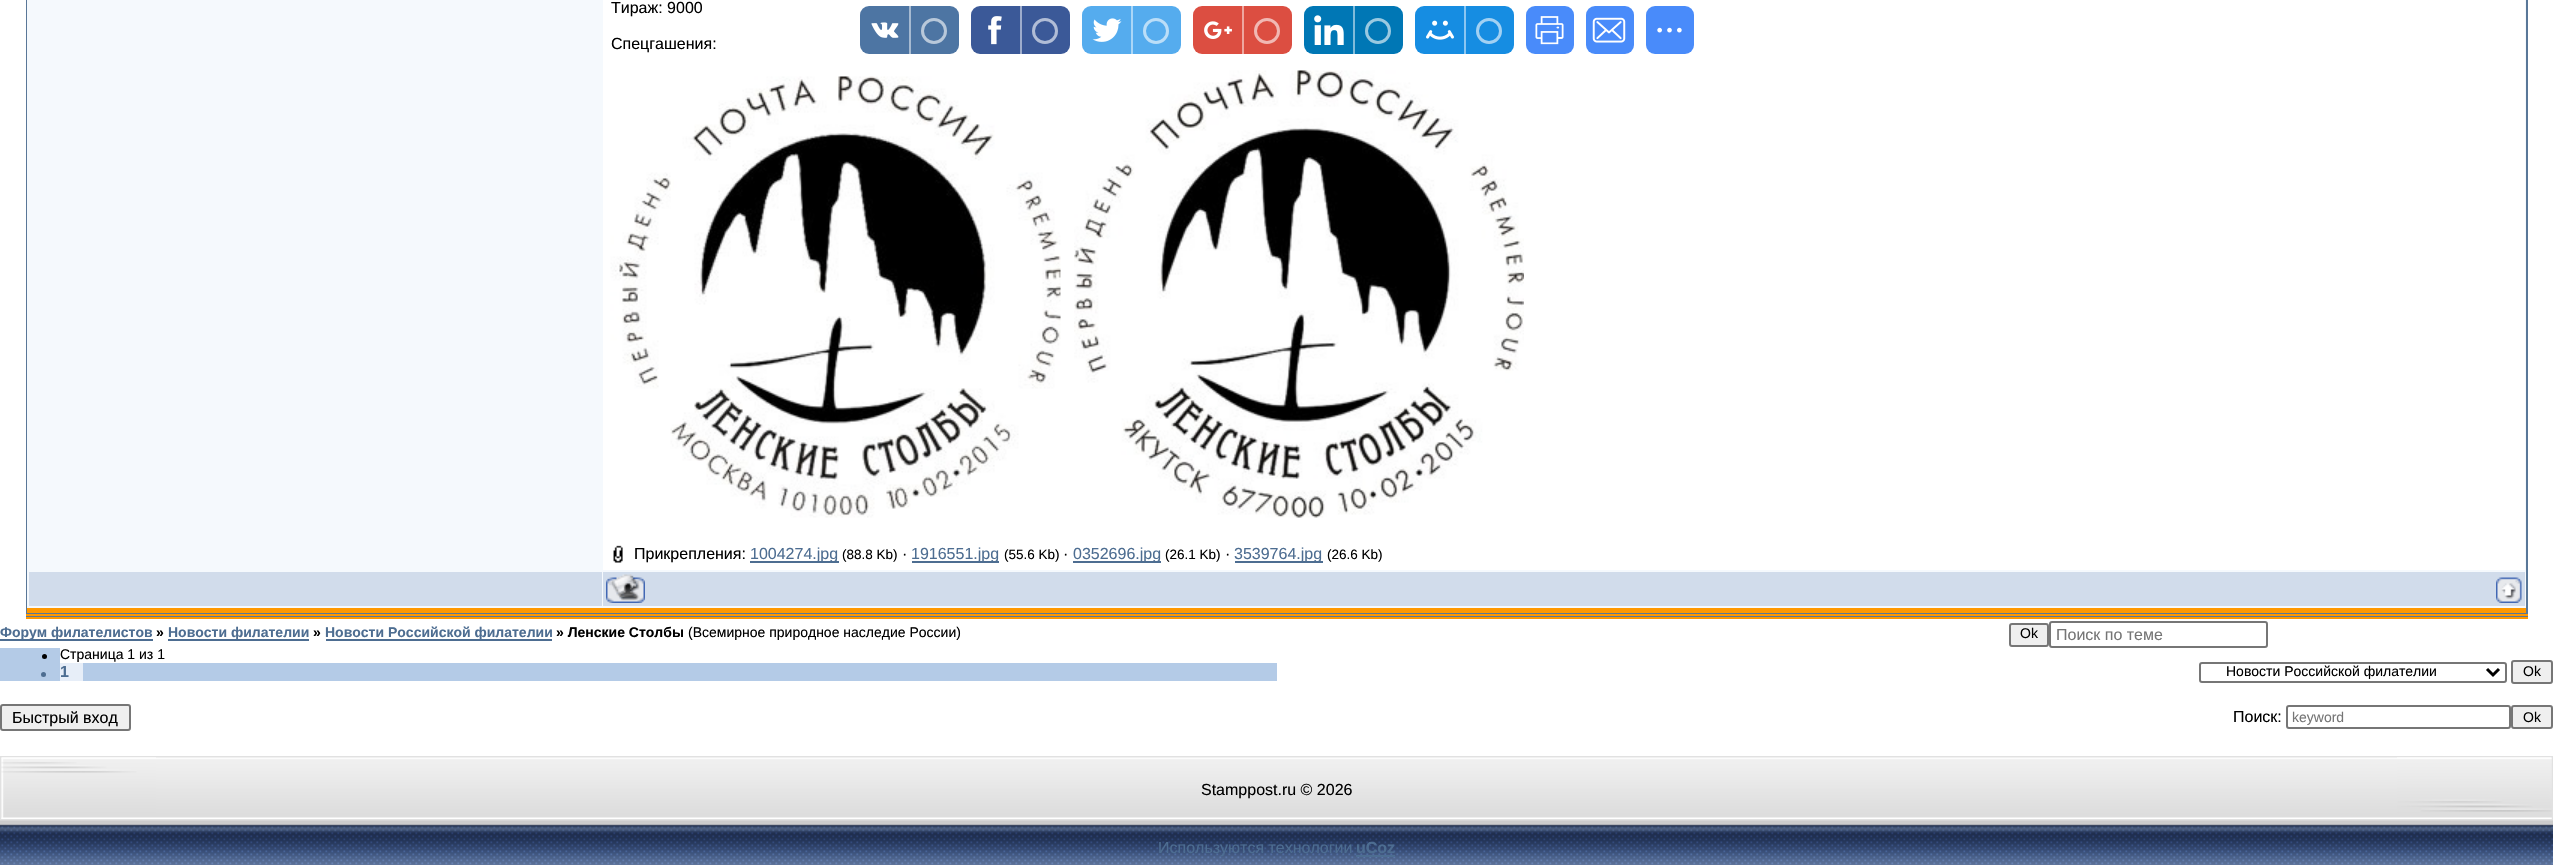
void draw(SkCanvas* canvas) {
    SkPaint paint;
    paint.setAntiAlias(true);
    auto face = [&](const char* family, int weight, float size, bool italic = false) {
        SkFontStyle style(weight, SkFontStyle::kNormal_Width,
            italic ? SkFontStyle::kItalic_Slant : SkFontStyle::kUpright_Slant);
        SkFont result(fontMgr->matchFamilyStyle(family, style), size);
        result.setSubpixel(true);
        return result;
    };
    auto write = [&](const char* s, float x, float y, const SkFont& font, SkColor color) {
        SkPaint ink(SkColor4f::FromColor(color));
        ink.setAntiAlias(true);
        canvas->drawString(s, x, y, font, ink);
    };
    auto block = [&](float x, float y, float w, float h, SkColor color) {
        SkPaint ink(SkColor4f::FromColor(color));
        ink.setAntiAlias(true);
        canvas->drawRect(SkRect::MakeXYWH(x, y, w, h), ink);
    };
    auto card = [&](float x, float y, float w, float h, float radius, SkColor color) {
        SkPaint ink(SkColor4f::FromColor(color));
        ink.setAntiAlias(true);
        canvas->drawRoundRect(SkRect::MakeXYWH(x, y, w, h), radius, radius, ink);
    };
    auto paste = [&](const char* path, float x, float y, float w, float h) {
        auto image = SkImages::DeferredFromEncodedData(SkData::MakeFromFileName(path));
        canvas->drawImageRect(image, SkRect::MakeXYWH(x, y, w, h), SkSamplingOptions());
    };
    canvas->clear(SK_ColorWHITE);
    block(26, 0, 2502, 617, SkColorSetRGB(89, 119, 152));
    block(26, 614, 2502, 2, SkColorSetRGB(255, 152, 0));
    block(26, 617, 2502, 2, SkColorSetRGB(255, 152, 0));
    block(27, 0, 2499, 608, SkColorSetRGB(245, 249, 253));
    block(27, 608, 2499, 5, SkColorSetRGB(255, 152, 0));
    block(603, 0, 1922, 570, SK_ColorWHITE);
    auto kFont1 = face("Liberation Sans", 400, 16);
    write("Тираж: 9000", 611, 13, kFont1, SK_ColorBLACK);
    write("Спецгашения:", 611, 49, kFont1, SK_ColorBLACK);
    paste("pic1.png", 610, 76, 451, 442);
    paste("pic2.png", 1074, 70, 450, 448);
    paste("pic3.png", 613, 545, 10, 18);
    write("Прикрепления:", 634, 559, kFont1, SK_ColorBLACK);
    block(750, 561, 89, 2, SkColorSetRGB(77, 109, 145));
    write("1004274.jpg", 750, 559, kFont1, SkColorSetRGB(77, 109, 145));
    auto kFont2 = face("Liberation Sans", 400, 13.5f);
    write("(88.8 Kb)", 842, 559, kFont2, SK_ColorBLACK);
    write("·", 902, 559, kFont1, SK_ColorBLACK);
    block(912, 561, 87, 2, SkColorSetRGB(77, 109, 145));
    write("1916551.jpg", 911, 559, kFont1, SkColorSetRGB(77, 109, 145));
    write("(55.6 Kb)", 1004, 559, kFont2, SK_ColorBLACK);
    write("·", 1063, 559, kFont1, SK_ColorBLACK);
    block(1073, 561, 88, 2, SkColorSetRGB(77, 109, 145));
    write("0352696.jpg", 1073, 559, kFont1, SkColorSetRGB(77, 109, 145));
    write("(26.1 Kb)", 1165, 559, kFont2, SK_ColorBLACK);
    write("·", 1225, 559, kFont1, SK_ColorBLACK);
    block(1235, 561, 88, 2, SkColorSetRGB(77, 109, 145));
    write("3539764.jpg", 1234, 559, kFont1, SkColorSetRGB(77, 109, 145));
    write("(26.6 Kb)", 1327, 559, kFont2, SK_ColorBLACK);
    block(29, 572, 573, 34, SkColorSetRGB(209, 220, 235));
    block(603, 572, 1922, 34, SkColorSetRGB(209, 220, 235));
    paste("pic4.png", 606, 574, 39, 29);
    paste("pic5.png", 2496, 577, 26, 26);
    block(0, 639, 153, 2, SkColorSetRGB(77, 109, 145));
    auto kFont3 = face("Liberation Sans", 700, 14);
    write("Форум филателистов", 0, 637, kFont3, SkColorSetRGB(77, 109, 145));
    write("»", 156, 637, kFont3, SK_ColorBLACK);
    block(168, 639, 141, 2, SkColorSetRGB(77, 109, 145));
    write("Новости филателии", 168, 637, kFont3, SkColorSetRGB(77, 109, 145));
    write("»", 313, 637, kFont3, SK_ColorBLACK);
    block(326, 639, 226, 2, SkColorSetRGB(77, 109, 145));
    write("Новости Российской филателии", 325, 637, kFont3, SkColorSetRGB(77, 109, 145));
    write("» Ленские Столбы", 556, 637, kFont3, SK_ColorBLACK);
    auto kFont4 = face("Liberation Sans", 400, 14);
    write("(Всемирное природное наследие России)", 688, 637, kFont4, SK_ColorBLACK);
    paint.setColor(SkColorSetRGB(239, 239, 239));
    canvas->drawRoundRect(SkRect::MakeXYWH(2010, 624, 38, 22), 2, 2, paint);
    paint.setStyle(SkPaint::kStroke_Style);
    paint.setStrokeWidth(2);
    paint.setColor(SkColorSetRGB(118, 118, 118));
    canvas->drawRoundRect(SkRect::MakeXYWH(2010, 624, 38, 22), 2, 2, paint);
    write("Ok", 2020, 638, kFont4, SK_ColorBLACK);
    canvas->drawRoundRect(SkRect::MakeXYWH(2050, 622, 217, 25), 2, 2, paint);
    write("Поиск по теме", 2056, 640, kFont1, SkColorSetRGB(117, 117, 117));
    block(0, 648, 1277, 33, SkColorSetRGB(180, 203, 231));
    block(60, 648, 1217, 15, SK_ColorWHITE);
    paint.setStyle(SkPaint::kFill_Style);
    paint.setColor(SK_ColorBLACK);
    canvas->drawCircle(44.5f, 656.5f, 2.5f, paint);
    write("Страница 1 из 1", 60, 659, kFont4, SK_ColorBLACK);
    block(60, 663, 23, 18, SkColorSetRGB(231, 238, 248));
    paint.setColor(SkColorSetRGB(77, 109, 145));
    canvas->drawCircle(43.5f, 674.5f, 2.5f, paint);
    auto kFont5 = face("Liberation Sans", 700, 16);
    write("1", 60, 677, kFont5, SkColorSetRGB(77, 109, 145));
    paint.setStyle(SkPaint::kStroke_Style);
    paint.setColor(SkColorSetRGB(118, 118, 118));
    canvas->drawRoundRect(SkRect::MakeXYWH(2200, 663, 306, 19), 2, 2, paint);
    paint.setStrokeWidth(3);
    paint.setColor(SK_ColorBLACK);
    canvas->drawPath(SkPathBuilder().moveTo(2487, 669).lineTo(2493, 675).lineTo(2499, 669).detach(), paint);
    write("Новости Российской филателии", 2226, 676, kFont4, SK_ColorBLACK);
    paint.setStyle(SkPaint::kFill_Style);
    paint.setColor(SkColorSetRGB(239, 239, 239));
    canvas->drawRoundRect(SkRect::MakeXYWH(2512, 661, 40, 22), 2, 2, paint);
    paint.setStyle(SkPaint::kStroke_Style);
    paint.setStrokeWidth(2);
    paint.setColor(SkColorSetRGB(118, 118, 118));
    canvas->drawRoundRect(SkRect::MakeXYWH(2512, 661, 40, 22), 2, 2, paint);
    write("Ok", 2523, 676, kFont4, SK_ColorBLACK);
    paint.setStyle(SkPaint::kFill_Style);
    paint.setColor(SkColorSetRGB(239, 239, 239));
    canvas->drawRoundRect(SkRect::MakeXYWH(1, 705, 129, 25), 2, 2, paint);
    paint.setStyle(SkPaint::kStroke_Style);
    paint.setColor(SkColorSetRGB(118, 118, 118));
    canvas->drawRoundRect(SkRect::MakeXYWH(1, 705, 129, 25), 2, 2, paint);
    write("Быстрый вход", 12, 723, kFont1, SK_ColorBLACK);
    write("Поиск:", 2233, 722, kFont1, SK_ColorBLACK);
    canvas->drawRoundRect(SkRect::MakeXYWH(2287, 706, 223, 22), 2, 2, paint);
    write("keyword", 2292, 722, kFont4, SkColorSetRGB(117, 117, 117));
    paint.setStyle(SkPaint::kFill_Style);
    paint.setColor(SkColorSetRGB(239, 239, 239));
    canvas->drawRoundRect(SkRect::MakeXYWH(2512, 706, 40, 22), 2, 2, paint);
    paint.setStyle(SkPaint::kStroke_Style);
    paint.setColor(SkColorSetRGB(118, 118, 118));
    canvas->drawRoundRect(SkRect::MakeXYWH(2512, 706, 40, 22), 2, 2, paint);
    write("Ok", 2523, 722, kFont4, SK_ColorBLACK);
    card(860, 6, 99, 48, 9, SkColorSetRGB(77, 117, 163));
    paste("pic6.png", 871, 22, 28, 16);
    block(909, 6, 2, 48, SkColorSetRGB(166, 186, 209));
    paint.setStrokeWidth(3);
    paint.setColor(SkColorSetRGB(184, 200, 218));
    canvas->drawCircle(934, 31, 11.5f, paint);
    card(971, 6, 99, 48, 9, SkColorSetRGB(59, 89, 152));
    paste("pic7.png", 988, 16, 14, 29);
    block(1020, 6, 2, 48, SkColorSetRGB(157, 172, 204));
    paint.setColor(SkColorSetRGB(177, 189, 214));
    canvas->drawCircle(1045, 31, 11.5f, paint);
    card(1082, 6, 99, 48, 9, SkColorSetRGB(85, 172, 238));
    paste("pic8.png", 1092, 18, 30, 24);
    block(1131, 6, 2, 48, SkColorSetRGB(170, 214, 247));
    paint.setColor(SkColorSetRGB(187, 222, 248));
    canvas->drawCircle(1156, 31, 11.5f, paint);
    card(1193, 6, 99, 48, 9, SkColorSetRGB(220, 78, 65));
    paste("pic9.png", 1204, 21, 28, 18);
    block(1242, 6, 2, 48, SkColorSetRGB(238, 167, 160));
    paint.setColor(SkColorSetRGB(241, 184, 179));
    canvas->drawCircle(1267, 31, 11.5f, paint);
    card(1304, 6, 99, 48, 9, SkColorSetRGB(0, 119, 181));
    paste("pic10.png", 1314, 15, 30, 30);
    block(1353, 6, 2, 48, SkColorSetRGB(128, 187, 218));
    paint.setColor(SkColorSetRGB(153, 201, 225));
    canvas->drawCircle(1378, 31, 11.5f, paint);
    card(1415, 6, 99, 48, 9, SkColorSetRGB(22, 141, 226));
    paste("pic11.png", 1426, 20, 28, 20);
    block(1464, 6, 2, 48, SkColorSetRGB(139, 198, 241));
    paint.setColor(SkColorSetRGB(162, 209, 243));
    canvas->drawCircle(1489, 31, 11.5f, paint);
    card(1526, 6, 48, 48, 9, SkColorSetRGB(73, 139, 250));
    paste("pic12.png", 1535, 16, 29, 29);
    card(1586, 6, 48, 48, 9, SkColorSetRGB(73, 139, 250));
    paste("pic13.png", 1592, 17, 34, 26);
    card(1646, 6, 48, 48, 9, SkColorSetRGB(73, 139, 250));
    paste("pic14.png", 1657, 27, 25, 6);
    paint.setStrokeWidth(2);
    paint.setColor(SkColorSetRGB(225, 225, 225));
    canvas->drawRect(SkRect::MakeXYWH(1, 757, 2551, 63), paint);
    paste("pic15.png", 1, 757, 2551, 62);
    paste("pic16.png", 1, 757, 155, 62);
    write("Stamppost.ru © 2026", 1201, 795, kFont1, SK_ColorBLACK);
    paste("pic17.png", 2397, 757, 155, 62);
    paste("pic18.png", 0, 820, 2553, 45);
    write("Используются технологии", 1158, 853, kFont1, SkColorSetRGB(77, 109, 145));
    write("uCoz", 1356, 853, kFont5, SkColorSetRGB(77, 109, 145));
    block(1356, 855, 39, 2, SkColorSetRGB(77, 109, 145));
}
